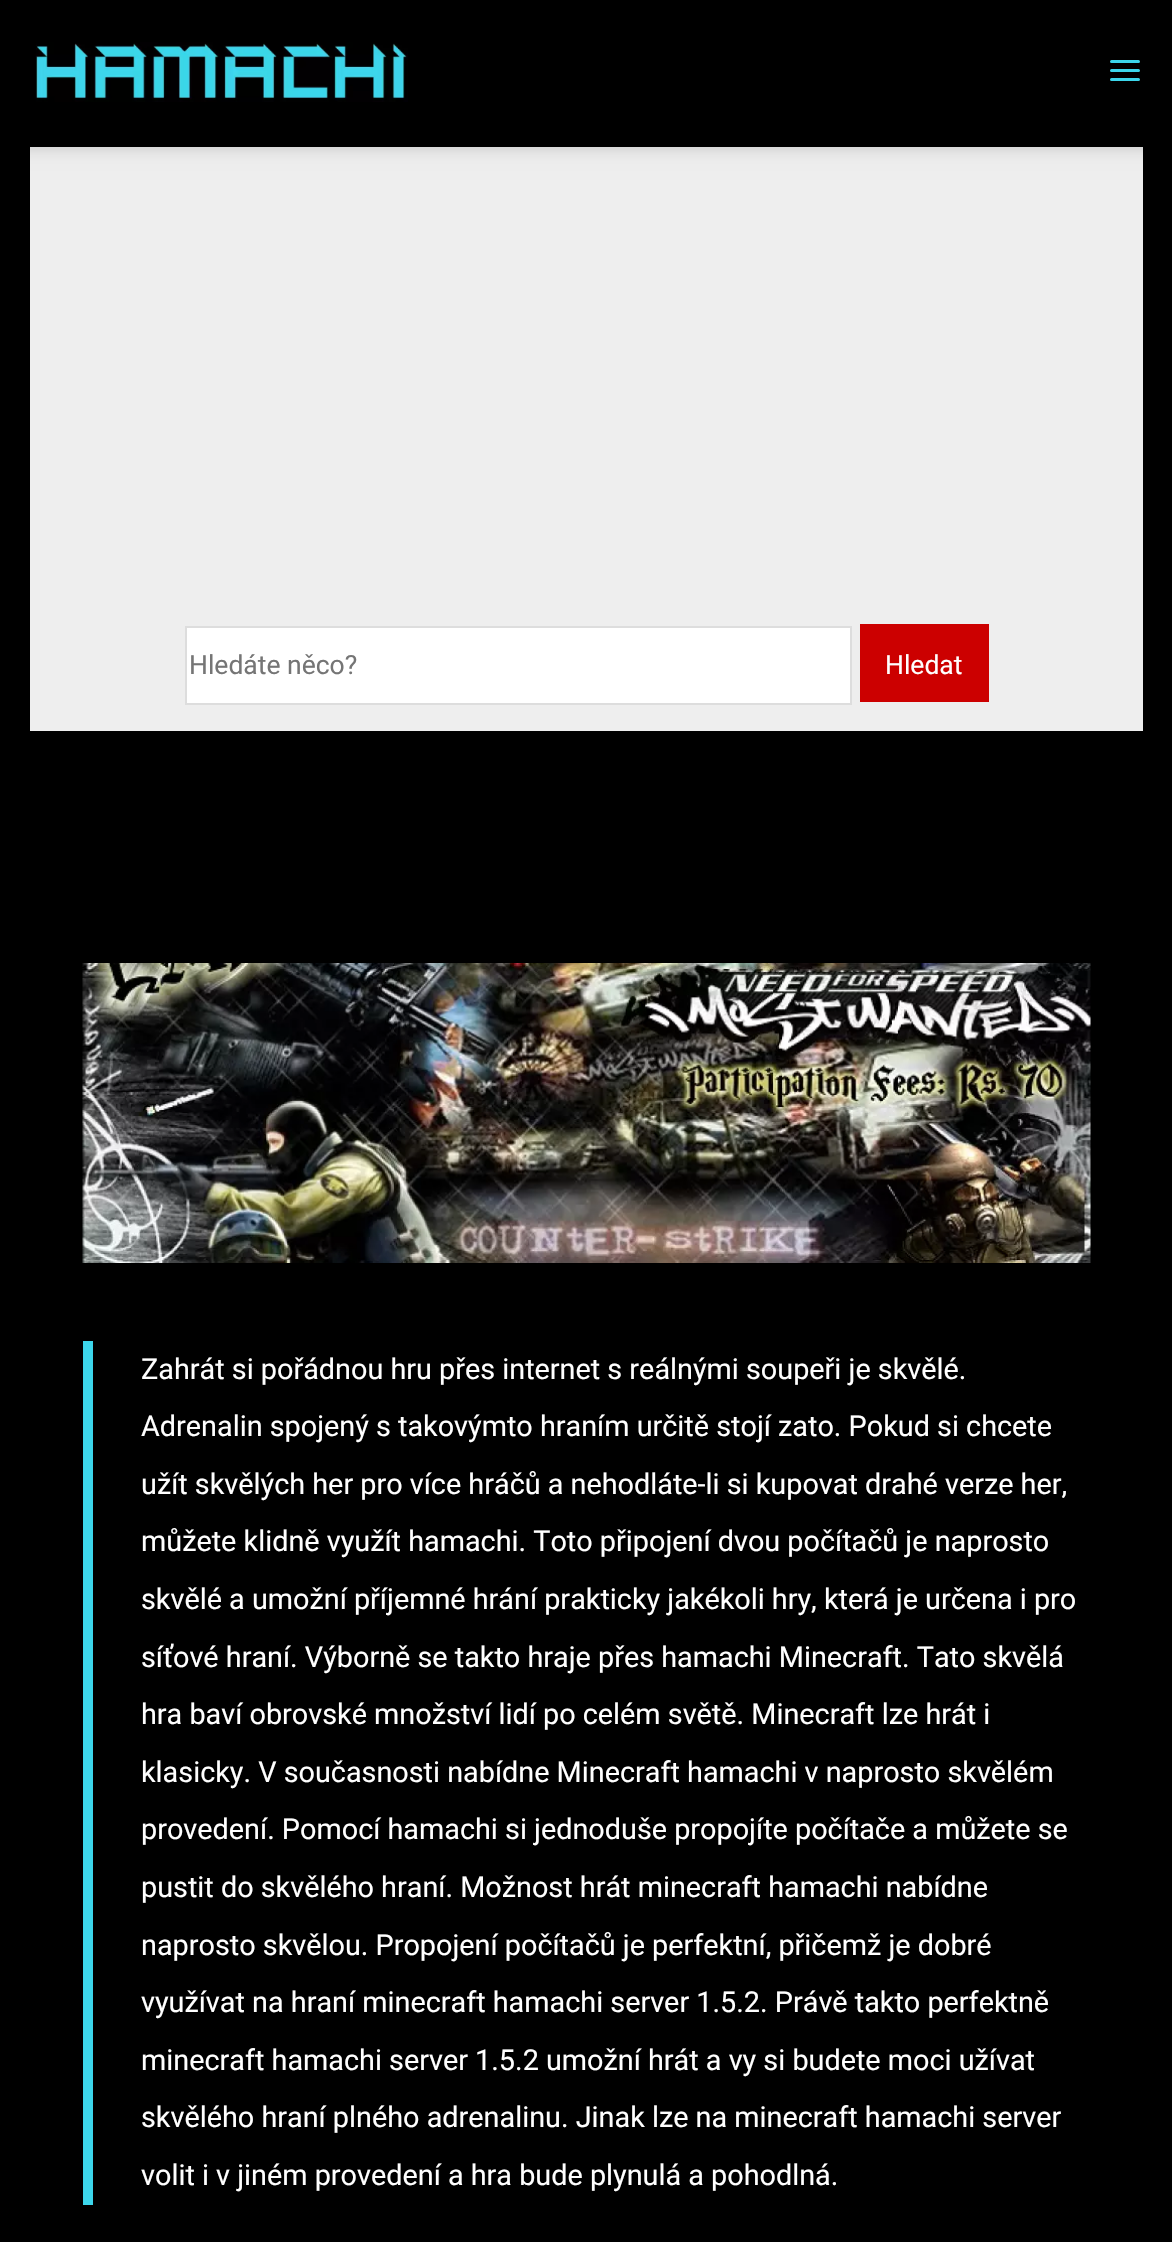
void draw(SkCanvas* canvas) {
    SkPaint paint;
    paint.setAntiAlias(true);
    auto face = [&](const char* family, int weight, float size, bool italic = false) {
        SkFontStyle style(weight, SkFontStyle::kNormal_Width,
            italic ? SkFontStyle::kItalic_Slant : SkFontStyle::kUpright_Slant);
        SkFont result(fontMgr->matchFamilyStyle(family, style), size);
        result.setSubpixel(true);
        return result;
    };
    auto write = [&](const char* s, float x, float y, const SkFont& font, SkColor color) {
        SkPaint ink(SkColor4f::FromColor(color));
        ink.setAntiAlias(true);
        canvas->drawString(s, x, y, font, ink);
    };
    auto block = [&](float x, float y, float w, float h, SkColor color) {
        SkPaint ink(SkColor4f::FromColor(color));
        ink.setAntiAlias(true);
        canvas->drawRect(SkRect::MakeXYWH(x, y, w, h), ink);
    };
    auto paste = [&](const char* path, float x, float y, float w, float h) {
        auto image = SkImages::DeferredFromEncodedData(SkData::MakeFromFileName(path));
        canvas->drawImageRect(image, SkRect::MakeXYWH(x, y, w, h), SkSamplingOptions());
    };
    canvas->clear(SK_ColorBLACK);
    block(30, 147, 1113, 584, SkColorSetRGB(238, 238, 238));
    paint.setColor(SkColorSetARGB(38, 0, 0, 0));
    paint.setMaskFilter(SkMaskFilter::MakeBlur(kNormal_SkBlurStyle, 7.5f));
    canvas->drawRect(SkRect::MakeXYWH(0, 2, 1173, 147), paint);
    paint.setMaskFilter(nullptr);
    paste("pic1.png", 35, 42, 373, 60);
    paint.setStyle(SkPaint::kStroke_Style);
    paint.setStrokeWidth(3);
    paint.setStrokeCap(SkPaint::kRound_Cap);
    paint.setStrokeJoin(SkPaint::kRound_Join);
    paint.setColor(SkColorSetRGB(60, 214, 235));
    canvas->drawPath(SkPathBuilder().moveTo(1111.5f, 70.5f).lineTo(1138.5f, 70.5f).moveTo(1111.5f, 61.5f).lineTo(1138.5f, 61.5f).moveTo(1111.5f, 79.5f).lineTo(1138.5f, 79.5f).detach(), paint);
    paint.setStyle(SkPaint::kFill_Style);
    paint.setColor(SK_ColorWHITE);
    canvas->drawRect(SkRect::MakeXYWH(186, 627, 665, 77), paint);
    paint.setStyle(SkPaint::kStroke_Style);
    paint.setStrokeWidth(2);
    paint.setStrokeCap(SkPaint::kButt_Cap);
    paint.setStrokeJoin(SkPaint::kMiter_Join);
    paint.setColor(SkColorSetRGB(221, 221, 221));
    canvas->drawRect(SkRect::MakeXYWH(186, 627, 665, 77), paint);
    auto kFont1 = face("Roboto", 400, 26.5f);
    write("Hledáte něco?", 189, 674, kFont1, SkColorSetRGB(117, 117, 117));
    block(860, 624, 129, 78, SkColorSetRGB(204, 0, 0));
    write("Hledat", 885, 674, kFont1, SK_ColorWHITE);
    paste("pic2.png", 82, 963, 1009, 300);
    block(83, 1341, 10, 864, SkColorSetRGB(60, 214, 235));
    auto kFont2 = face("Roboto", 400, 28.8f);
    write("Zahrát si pořádnou hru přes internet s reálnými soupeři je skvělé.", 141, 1379, kFont2, SK_ColorWHITE);
    write("Adrenalin spojený s takovýmto hraním určitě stojí zato. Pokud si chcete", 141, 1436, kFont2, SK_ColorWHITE);
    write("užít skvělých her pro více hráčů a nehodláte-li si kupovat drahé verze her,", 141, 1494, kFont2, SK_ColorWHITE);
    write("můžete klidně využít hamachi. Toto připojení dvou počítačů je naprosto", 141, 1551, kFont2, SK_ColorWHITE);
    write("skvělé a umožní příjemné hrání prakticky jakékoli hry, která je určena i pro", 141, 1609, kFont2, SK_ColorWHITE);
    write("síťové hraní. Výborně se takto hraje přes hamachi Minecraft. Tato skvělá", 141, 1667, kFont2, SK_ColorWHITE);
    write("hra baví obrovské množství lidí po celém světě. Minecraft lze hrát i", 141, 1724, kFont2, SK_ColorWHITE);
    write("klasicky. V současnosti nabídne Minecraft hamachi v naprosto skvělém", 141, 1782, kFont2, SK_ColorWHITE);
    write("provedení. Pomocí hamachi si jednoduše propojíte počítače a můžete se", 141, 1839, kFont2, SK_ColorWHITE);
    write("pustit do skvělého hraní. Možnost hrát minecraft hamachi nabídne", 141, 1897, kFont2, SK_ColorWHITE);
    write("naprosto skvělou. Propojení počítačů je perfektní, přičemž je dobré", 141, 1955, kFont2, SK_ColorWHITE);
    write("využívat na hraní minecraft hamachi server 1.5.2. Právě takto perfektně", 141, 2012, kFont2, SK_ColorWHITE);
    write("minecraft hamachi server 1.5.2 umožní hrát a vy si budete moci užívat", 141, 2070, kFont2, SK_ColorWHITE);
    write("skvělého hraní plného adrenalinu. Jinak lze na minecraft hamachi server", 141, 2127, kFont2, SK_ColorWHITE);
    write("volit i v jiném provedení a hra bude plynulá a pohodlná.", 141, 2185, kFont2, SK_ColorWHITE);
}
